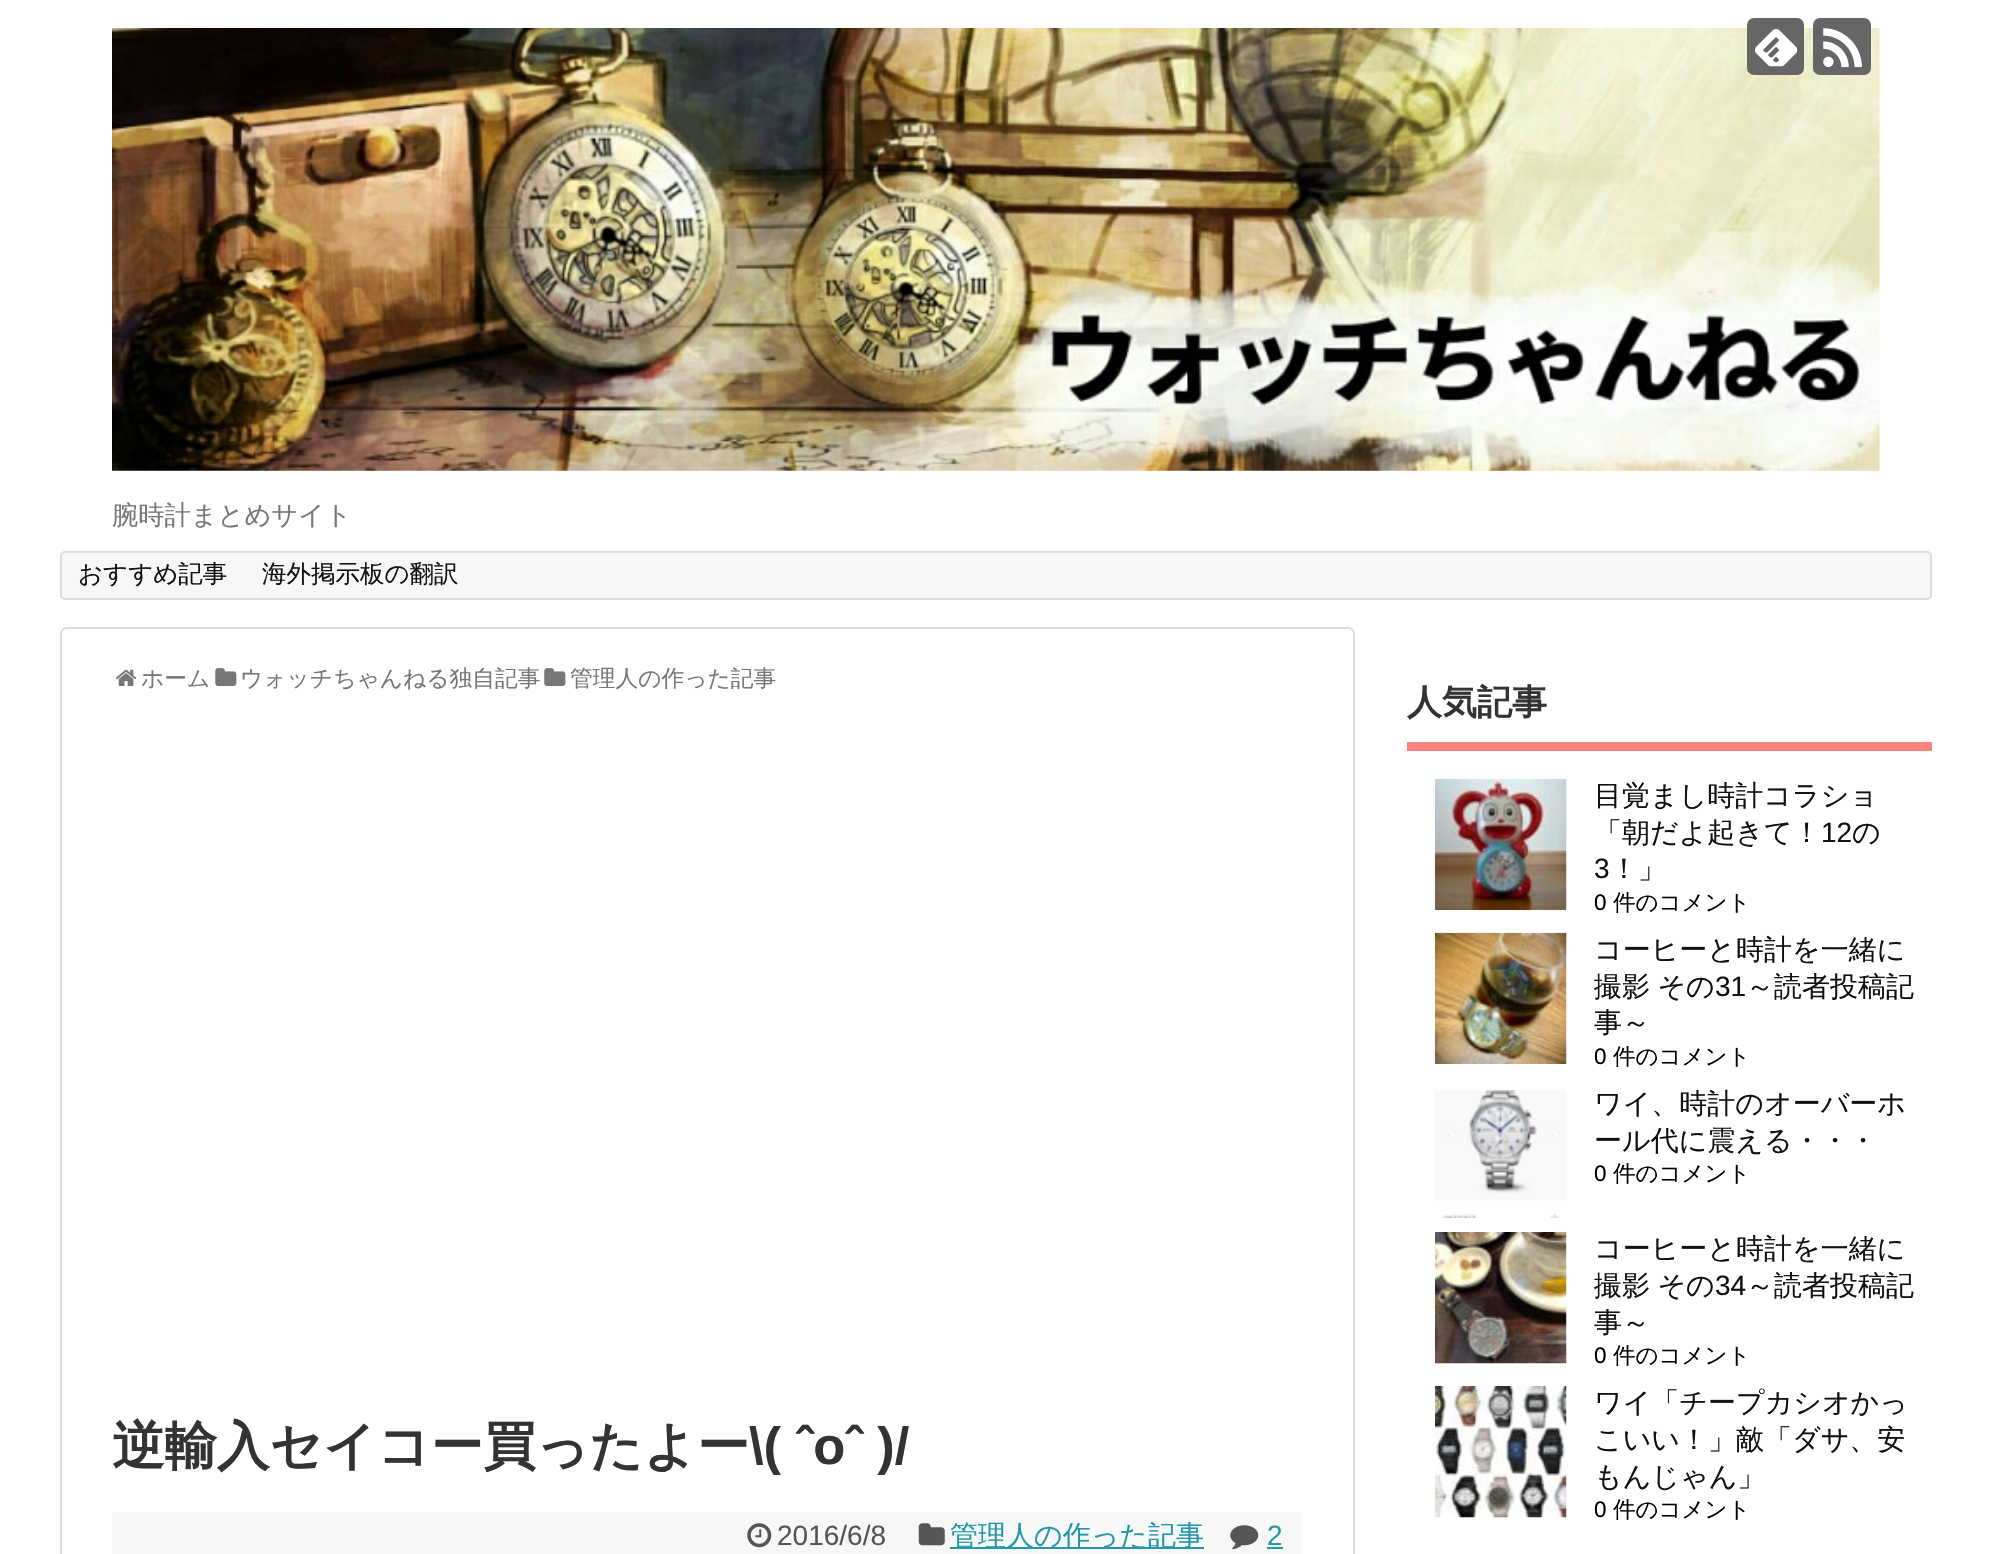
void draw(SkCanvas* canvas) {
    SkPaint paint;
    paint.setAntiAlias(true);
    auto face = [&](const char* family, int weight, float size, bool italic = false) {
        SkFontStyle style(weight, SkFontStyle::kNormal_Width,
            italic ? SkFontStyle::kItalic_Slant : SkFontStyle::kUpright_Slant);
        SkFont result(fontMgr->matchFamilyStyle(family, style), size);
        result.setSubpixel(true);
        return result;
    };
    auto write = [&](const char* s, float x, float y, const SkFont& font, SkColor color) {
        SkPaint ink(SkColor4f::FromColor(color));
        ink.setAntiAlias(true);
        canvas->drawString(s, x, y, font, ink);
    };
    auto writeSpaced = [&](const char* s, float x, float y, const SkFont& font, const SkPaint& ink, float letter, float word) {
        std::vector<SkGlyphID> glyphs(font.countText(s, strlen(s), SkTextEncoding::kUTF8));
        std::vector<float> xs(glyphs.size());
        font.textToGlyphs(s, strlen(s), SkTextEncoding::kUTF8, glyphs);
        font.getXPos(glyphs, xs, x);
        float extra = 0;
        for (size_t i = 0; i < glyphs.size(); i++) {
            xs[i] += extra;
            extra += letter + word * (glyphs[i] == font.unicharToGlyph(' '));
        }
        canvas->drawTextBlob(SkTextBlob::MakeFromPosHGlyphs(glyphs, xs, y, font), 0, 0, ink);
    };
    auto block = [&](float x, float y, float w, float h, SkColor color) {
        SkPaint ink(SkColor4f::FromColor(color));
        ink.setAntiAlias(true);
        canvas->drawRect(SkRect::MakeXYWH(x, y, w, h), ink);
    };
    auto card = [&](float x, float y, float w, float h, float radius, SkColor color) {
        SkPaint ink(SkColor4f::FromColor(color));
        ink.setAntiAlias(true);
        canvas->drawRoundRect(SkRect::MakeXYWH(x, y, w, h), radius, radius, ink);
    };
    auto paste = [&](const char* path, float x, float y, float w, float h) {
        auto image = SkImages::DeferredFromEncodedData(SkData::MakeFromFileName(path));
        canvas->drawImageRect(image, SkRect::MakeXYWH(x, y, w, h), SkSamplingOptions());
    };
    canvas->clear(SK_ColorWHITE);
    paste("pic3.png", 112, 28, 1768, 443);
    card(1747, 18, 57, 57, 7, SkColorSetRGB(102, 102, 102));
    paste("pic1.png", 1755, 29, 43, 38);
    card(1813, 18, 58, 57, 7, SkColorSetRGB(102, 102, 102));
    paste("pic2.png", 1823, 28, 39, 40);
    auto kFont1 = face("WenQuanYi Zen Hei", 500, 26.25f);
    write("腕時計まとめサイト", 112, 524, kFont1, SkColorSetRGB(119, 119, 119));
    paint.setColor(SkColorSetRGB(247, 247, 247));
    canvas->drawRoundRect(SkRect::MakeXYWH(61, 552, 1870, 47), 4, 4, paint);
    paint.setStyle(SkPaint::kStroke_Style);
    paint.setStrokeWidth(2);
    paint.setColor(SkColorSetRGB(221, 221, 221));
    canvas->drawRoundRect(SkRect::MakeXYWH(61, 552, 1870, 47), 4, 4, paint);
    auto kFont2 = face("WenQuanYi Zen Hei", 500, 24.5f);
    write("おすすめ記事", 78, 582, kFont2, SkColorSetRGB(17, 17, 17));
    write("海外掲示板の翻訳", 262, 582, kFont2, SkColorSetRGB(17, 17, 17));
    canvas->drawRoundRect(SkRect::MakeXYWH(61, 628, 1293, 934), 6, 6, paint);
    paste("pic4.png", 115, 669, 22, 17);
    auto kFont3 = face("WenQuanYi Zen Hei", 500, 22.75f);
    write("ホーム", 141, 686, kFont3, SkColorSetRGB(119, 119, 119));
    paste("pic5.png", 215, 668, 22, 18);
    write("ウォッチちゃんねる独自記事", 240, 686, kFont3, SkColorSetRGB(119, 119, 119));
    paste("pic6.png", 544, 668, 22, 18);
    write("管理人の作った記事", 570, 686, kFont3, SkColorSetRGB(119, 119, 119));
    auto kFont4 = face("WenQuanYi Zen Hei", 700, 52.5f);
    write("逆輸入セイコー買ったよー", 112, 1464, kFont4, SkColorSetRGB(51, 51, 51));
    auto kFont5 = face("Liberation Sans", 700, 52.5f);
    write("\\( ˆoˆ )/", 749, 1464, kFont5, SkColorSetRGB(51, 51, 51));
    block(112, 1512, 1190, 42, SkColorSetRGB(247, 247, 247));
    paste("pic7.png", 747, 1523, 25, 25);
    auto kFont6 = face("Liberation Sans", 400, 28);
    write("2016/6/8", 777, 1545, kFont6, SkColorSetRGB(85, 85, 85));
    paste("pic8.png", 918, 1523, 27, 23);
    block(950, 1547, 254, 2, SkColorSetRGB(32, 152, 168));
    auto kFont7 = face("WenQuanYi Zen Hei", 500, 28);
    write("管理人の作った記事", 950, 1545, kFont7, SkColorSetRGB(32, 152, 168));
    paste("pic9.png", 1230, 1525, 29, 25);
    write("2", 1267, 1545, kFont6, SkColorSetRGB(32, 152, 168));
    block(1267, 1547, 16, 2, SkColorSetRGB(32, 152, 168));
    block(1407, 742, 525, 9, SkColorSetRGB(255, 131, 123));
    auto kFont8 = face("WenQuanYi Zen Hei", 700, 35);
    write("人気記事", 1407, 714, kFont8, SkColorSetRGB(51, 51, 51));
    paste("pic10.png", 1435, 778, 132, 132);
    write("目覚まし時計コラショ", 1594, 805, kFont7, SkColorSetRGB(17, 17, 17));
    write("「朝だよ起きて！", 1594, 842, kFont7, SkColorSetRGB(17, 17, 17));
    write("12", 1821, 842, kFont6, SkColorSetRGB(17, 17, 17));
    write("の", 1852, 842, kFont7, SkColorSetRGB(17, 17, 17));
    write("3", 1594, 878, kFont6, SkColorSetRGB(17, 17, 17));
    write("！」", 1610, 878, kFont7, SkColorSetRGB(17, 17, 17));
    auto kFont9 = face("Liberation Sans", 400, 22.5f);
    write("0", 1594, 910, kFont9, SK_ColorBLACK);
    auto kFont10 = face("WenQuanYi Zen Hei", 500, 22.5f);
    write("件のコメント", 1613, 910, kFont10, SK_ColorBLACK);
    paste("pic11.png", 1435, 932, 132, 132);
    write("コーヒーと時計を一緒に", 1594, 959, kFont7, SkColorSetRGB(17, 17, 17));
    paint.setStyle(SkPaint::kFill_Style);
    paint.setColor(SkColorSetRGB(17, 17, 17));
    writeSpaced("撮影 その", 1594, 996, kFont7, paint, 0, -1);
    write("31", 1715, 996, kFont6, SkColorSetRGB(17, 17, 17));
    write("～読者投稿記", 1746, 996, kFont7, SkColorSetRGB(17, 17, 17));
    write("事～", 1594, 1032, kFont7, SkColorSetRGB(17, 17, 17));
    write("0", 1594, 1064, kFont9, SK_ColorBLACK);
    write("件のコメント", 1613, 1064, kFont10, SK_ColorBLACK);
    paste("pic12.png", 1435, 1089, 131, 129);
    write("ワイ、時計のオーバーホ", 1594, 1113, kFont7, SkColorSetRGB(17, 17, 17));
    write("ール代に震える・・・", 1594, 1150, kFont7, SkColorSetRGB(17, 17, 17));
    write("0", 1594, 1181, kFont9, SK_ColorBLACK);
    write("件のコメント", 1613, 1181, kFont10, SK_ColorBLACK);
    paste("pic13.png", 1435, 1232, 132, 132);
    write("コーヒーと時計を一緒に", 1594, 1258, kFont7, SkColorSetRGB(17, 17, 17));
    writeSpaced("撮影 その", 1594, 1295, kFont7, paint, 0, -1);
    write("34", 1715, 1295, kFont6, SkColorSetRGB(17, 17, 17));
    write("～読者投稿記", 1746, 1295, kFont7, SkColorSetRGB(17, 17, 17));
    write("事～", 1594, 1332, kFont7, SkColorSetRGB(17, 17, 17));
    write("0", 1594, 1363, kFont9, SK_ColorBLACK);
    write("件のコメント", 1613, 1363, kFont10, SK_ColorBLACK);
    paste("pic14.png", 1435, 1386, 132, 132);
    write("ワイ「チープカシオかっ", 1594, 1412, kFont7, SkColorSetRGB(17, 17, 17));
    write("こいい！」敵「ダサ、安", 1594, 1449, kFont7, SkColorSetRGB(17, 17, 17));
    write("もんじゃん」", 1594, 1486, kFont7, SkColorSetRGB(17, 17, 17));
    write("0", 1594, 1517, kFont9, SK_ColorBLACK);
    write("件のコメント", 1613, 1517, kFont10, SK_ColorBLACK);
}
